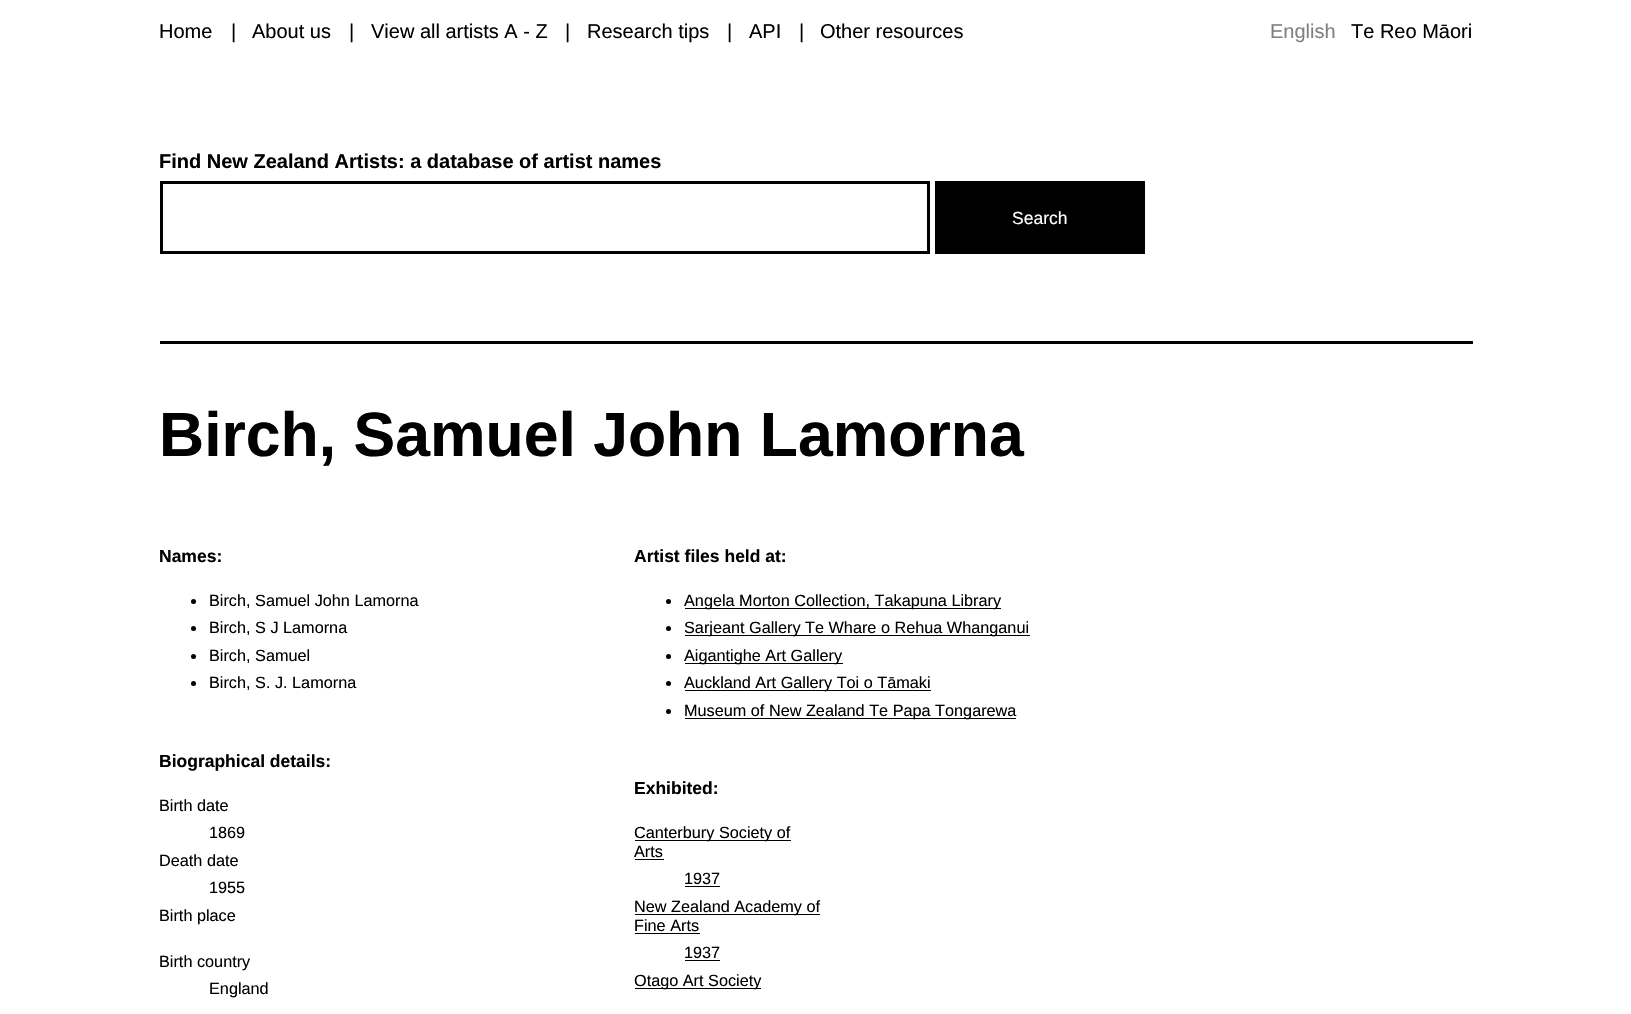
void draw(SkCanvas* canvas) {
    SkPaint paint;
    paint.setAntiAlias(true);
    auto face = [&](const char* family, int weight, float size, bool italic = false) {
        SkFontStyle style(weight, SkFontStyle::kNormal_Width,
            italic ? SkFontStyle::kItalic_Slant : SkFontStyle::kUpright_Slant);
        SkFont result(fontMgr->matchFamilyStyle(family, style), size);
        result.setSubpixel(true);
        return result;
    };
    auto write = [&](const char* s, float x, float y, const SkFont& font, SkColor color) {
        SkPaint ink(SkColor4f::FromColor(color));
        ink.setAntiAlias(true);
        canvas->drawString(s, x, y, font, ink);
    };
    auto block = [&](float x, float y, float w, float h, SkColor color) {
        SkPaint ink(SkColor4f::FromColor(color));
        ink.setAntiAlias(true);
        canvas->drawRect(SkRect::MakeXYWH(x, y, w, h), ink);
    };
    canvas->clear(SK_ColorWHITE);
    auto kFont1 = face("Liberation Sans", 400, 20);
    write("Home", 159, 38, kFont1, SK_ColorBLACK);
    write("|", 231, 38, kFont1, SK_ColorBLACK);
    write("About us", 252, 38, kFont1, SK_ColorBLACK);
    write("|", 349, 38, kFont1, SK_ColorBLACK);
    write("View all artists A - Z", 371, 38, kFont1, SK_ColorBLACK);
    write("|", 565, 38, kFont1, SK_ColorBLACK);
    write("Research tips", 587, 38, kFont1, SK_ColorBLACK);
    write("|", 727, 38, kFont1, SK_ColorBLACK);
    write("API", 749, 38, kFont1, SK_ColorBLACK);
    write("|", 799, 38, kFont1, SK_ColorBLACK);
    write("Other resources", 820, 38, kFont1, SK_ColorBLACK);
    write("English", 1270, 38, kFont1, SkColorSetRGB(128, 128, 128));
    write("Te Reo Māori", 1351, 38, kFont1, SK_ColorBLACK);
    auto kFont2 = face("Liberation Sans", 700, 20);
    write("Find New Zealand Artists: a database of artist names", 159, 168, kFont2, SK_ColorBLACK);
    paint.setStyle(SkPaint::kStroke_Style);
    paint.setStrokeWidth(3);
    paint.setColor(SK_ColorBLACK);
    canvas->drawRect(SkRect::MakeXYWH(161.5f, 182.5f, 767, 70), paint);
    block(935, 181, 210, 73, SK_ColorBLACK);
    auto kFont3 = face("Liberation Sans", 400, 17.5f);
    write("Search", 1012, 224, kFont3, SK_ColorWHITE);
    block(160, 341, 1313, 3, SK_ColorBLACK);
    auto kFont4 = face("Liberation Sans", 700, 62.5f);
    write("Birch, Samuel John Lamorna", 159, 456, kFont4, SK_ColorBLACK);
    auto kFont5 = face("Liberation Sans", 700, 17.5f);
    write("Names:", 159, 562, kFont5, SK_ColorBLACK);
    paint.setStyle(SkPaint::kFill_Style);
    canvas->drawCircle(193.5f, 601.5f, 2.5f, paint);
    auto kFont6 = face("Liberation Sans", 400, 16.25f);
    write("Birch, Samuel John Lamorna", 209, 606, kFont6, SK_ColorBLACK);
    canvas->drawCircle(193.5f, 628.5f, 2.5f, paint);
    write("Birch, S J Lamorna", 209, 633, kFont6, SK_ColorBLACK);
    canvas->drawCircle(193.5f, 656.5f, 2.5f, paint);
    write("Birch, Samuel", 209, 661, kFont6, SK_ColorBLACK);
    canvas->drawCircle(193.5f, 683.5f, 2.5f, paint);
    write("Birch, S. J. Lamorna", 209, 688, kFont6, SK_ColorBLACK);
    write("Biographical details:", 159, 767, kFont5, SK_ColorBLACK);
    write("Birth date", 159, 811, kFont6, SK_ColorBLACK);
    write("1869", 209, 838, kFont6, SK_ColorBLACK);
    write("Death date", 159, 866, kFont6, SK_ColorBLACK);
    write("1955", 209, 893, kFont6, SK_ColorBLACK);
    write("Birth place", 159, 921, kFont6, SK_ColorBLACK);
    write("Birth country", 159, 967, kFont6, SK_ColorBLACK);
    write("England", 209, 994, kFont6, SK_ColorBLACK);
    write("Artist files held at:", 634, 562, kFont5, SK_ColorBLACK);
    canvas->drawCircle(668.5f, 601.5f, 2.5f, paint);
    block(685, 608, 316, 1, SK_ColorBLACK);
    write("Angela Morton Collection, Takapuna Library", 684, 606, kFont6, SK_ColorBLACK);
    canvas->drawCircle(668.5f, 628.5f, 2.5f, paint);
    block(685, 635, 345, 1, SK_ColorBLACK);
    write("Sarjeant Gallery Te Whare o Rehua Whanganui", 684, 633, kFont6, SK_ColorBLACK);
    canvas->drawCircle(668.5f, 656.5f, 2.5f, paint);
    block(685, 663, 158, 1, SK_ColorBLACK);
    write("Aigantighe Art Gallery", 684, 661, kFont6, SK_ColorBLACK);
    canvas->drawCircle(668.5f, 683.5f, 2.5f, paint);
    block(685, 690, 246, 1, SK_ColorBLACK);
    write("Auckland Art Gallery Toi o Tāmaki", 684, 688, kFont6, SK_ColorBLACK);
    canvas->drawCircle(668.5f, 711.5f, 2.5f, paint);
    block(685, 718, 331, 1, SK_ColorBLACK);
    write("Museum of New Zealand Te Papa Tongarewa", 684, 716, kFont6, SK_ColorBLACK);
    write("Exhibited:", 634, 794, kFont5, SK_ColorBLACK);
    block(635, 840, 156, 1, SK_ColorBLACK);
    write("Canterbury Society of", 634, 838, kFont6, SK_ColorBLACK);
    write("Arts", 634, 857, kFont6, SK_ColorBLACK);
    block(635, 859, 29, 1, SK_ColorBLACK);
    write("1937", 684, 884, kFont6, SK_ColorBLACK);
    block(685, 886, 35, 1, SK_ColorBLACK);
    block(635, 914, 185, 1, SK_ColorBLACK);
    write("New Zealand Academy of", 634, 912, kFont6, SK_ColorBLACK);
    write("Fine Arts", 634, 931, kFont6, SK_ColorBLACK);
    block(635, 933, 65, 1, SK_ColorBLACK);
    write("1937", 684, 958, kFont6, SK_ColorBLACK);
    block(685, 960, 35, 1, SK_ColorBLACK);
    block(635, 988, 126, 1, SK_ColorBLACK);
    write("Otago Art Society", 634, 986, kFont6, SK_ColorBLACK);
}
